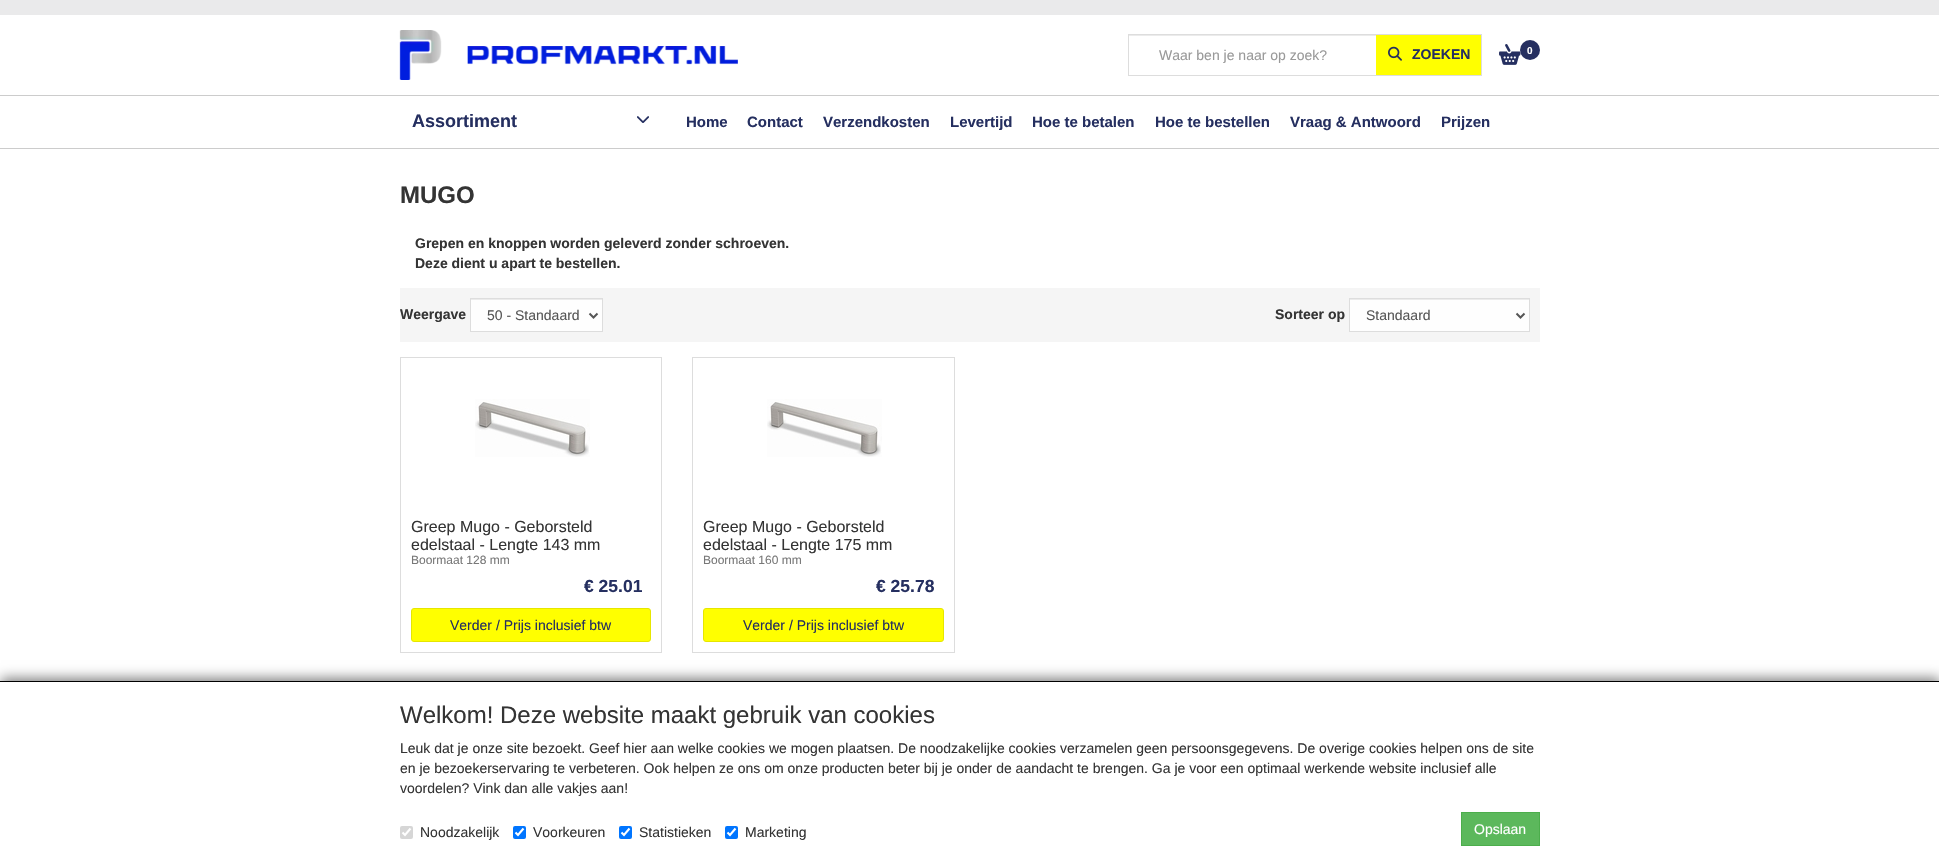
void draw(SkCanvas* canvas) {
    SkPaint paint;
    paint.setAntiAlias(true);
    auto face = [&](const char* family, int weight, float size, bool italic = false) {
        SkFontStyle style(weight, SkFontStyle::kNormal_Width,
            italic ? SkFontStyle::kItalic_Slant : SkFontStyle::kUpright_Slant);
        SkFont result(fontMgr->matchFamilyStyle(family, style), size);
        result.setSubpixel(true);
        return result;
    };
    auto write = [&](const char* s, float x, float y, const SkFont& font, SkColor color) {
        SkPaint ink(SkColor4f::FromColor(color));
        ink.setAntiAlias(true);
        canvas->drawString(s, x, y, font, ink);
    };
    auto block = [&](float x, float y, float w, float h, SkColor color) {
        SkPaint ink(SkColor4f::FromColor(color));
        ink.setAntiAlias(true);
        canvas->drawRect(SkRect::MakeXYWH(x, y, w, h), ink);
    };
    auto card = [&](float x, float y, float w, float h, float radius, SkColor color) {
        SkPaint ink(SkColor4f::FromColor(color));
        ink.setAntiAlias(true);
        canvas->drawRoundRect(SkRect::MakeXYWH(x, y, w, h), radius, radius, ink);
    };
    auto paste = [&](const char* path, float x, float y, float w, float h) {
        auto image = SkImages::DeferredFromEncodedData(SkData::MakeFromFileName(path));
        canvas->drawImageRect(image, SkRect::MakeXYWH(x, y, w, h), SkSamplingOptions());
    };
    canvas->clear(SK_ColorWHITE);
    block(0, 0, 1939, 15, SkColorSetRGB(234, 234, 235));
    paste("pic1.png", 399, 30, 339, 50);
    paint.setStyle(SkPaint::kStroke_Style);
    paint.setStrokeWidth(1);
    paint.setColor(SkColorSetRGB(221, 221, 221));
    canvas->drawRect(SkRect::MakeXYWH(1128.5f, 34.5f, 353, 41), paint);
    block(1129, 35, 250, 1, SkColorSetRGB(235, 235, 235));
    auto kFont1 = face("Liberation Sans", 400, 14);
    write("Waar ben je naar op zoek?", 1159, 60, kFont1, SkColorSetRGB(153, 153, 153));
    block(1376, 35, 105, 40, SkColorSetRGB(255, 255, 0));
    paste("pic2.png", 1388, 46, 14, 15);
    auto kFont2 = face("Liberation Sans", 700, 14);
    write("ZOEKEN", 1412, 59, kFont2, SkColorSetRGB(37, 47, 96));
    paste("pic3.png", 1499, 44, 22, 21);
    paint.setStyle(SkPaint::kFill_Style);
    paint.setColor(SkColorSetRGB(37, 47, 96));
    canvas->drawCircle(1530, 50, 10, paint);
    auto kFont3 = face("Liberation Sans", 700, 10);
    write("0", 1527, 54, kFont3, SK_ColorWHITE);
    block(0, 95, 1939, 1, SkColorSetRGB(204, 204, 204));
    block(0, 148, 1939, 1, SkColorSetRGB(204, 204, 204));
    auto kFont4 = face("Liberation Sans", 700, 18);
    write("Assortiment", 412, 127, kFont4, SkColorSetRGB(37, 47, 96));
    paste("pic4.png", 637, 116, 12, 7);
    auto kFont5 = face("Liberation Sans", 700, 15);
    write("Home", 686, 127, kFont5, SkColorSetRGB(37, 47, 96));
    write("Contact", 747, 127, kFont5, SkColorSetRGB(37, 47, 96));
    write("Verzendkosten", 823, 127, kFont5, SkColorSetRGB(37, 47, 96));
    write("Levertijd", 950, 127, kFont5, SkColorSetRGB(37, 47, 96));
    write("Hoe te betalen", 1032, 127, kFont5, SkColorSetRGB(37, 47, 96));
    write("Hoe te bestellen", 1155, 127, kFont5, SkColorSetRGB(37, 47, 96));
    write("Vraag & Antwoord", 1290, 127, kFont5, SkColorSetRGB(37, 47, 96));
    write("Prijzen", 1441, 127, kFont5, SkColorSetRGB(37, 47, 96));
    auto kFont6 = face("Liberation Sans", 700, 24);
    write("MUGO", 400, 203, kFont6, SkColorSetRGB(52, 52, 52));
    write("Grepen en knoppen worden geleverd zonder schroeven.", 415, 248, kFont2, SkColorSetRGB(52, 52, 52));
    write("Deze dient u apart te bestellen.", 415, 268, kFont2, SkColorSetRGB(52, 52, 52));
    block(400, 288, 1140, 54, SkColorSetRGB(245, 245, 245));
    write("Weergave", 400, 319, kFont2, SkColorSetRGB(52, 52, 52));
    block(471, 300, 131, 31, SkColorSetRGB(254, 254, 254));
    block(471, 299, 131, 1, SkColorSetRGB(235, 235, 235));
    paint.setStyle(SkPaint::kStroke_Style);
    paint.setColor(SkColorSetRGB(221, 221, 221));
    canvas->drawRect(SkRect::MakeXYWH(470.5f, 298.5f, 132, 33), paint);
    paint.setStrokeWidth(2);
    paint.setColor(SkColorSetRGB(86, 86, 86));
    canvas->drawPath(SkPathBuilder().moveTo(589.5f, 313.5f).lineTo(593.5f, 317.5f).lineTo(597.5f, 313.5f).detach(), paint);
    write("50 - Standaard", 487, 320, kFont1, SkColorSetRGB(86, 86, 86));
    write("Sorteer op", 1275, 319, kFont2, SkColorSetRGB(52, 52, 52));
    block(1350, 300, 179, 31, SkColorSetRGB(254, 254, 254));
    block(1350, 299, 179, 1, SkColorSetRGB(235, 235, 235));
    paint.setStrokeWidth(1);
    paint.setColor(SkColorSetRGB(221, 221, 221));
    canvas->drawRect(SkRect::MakeXYWH(1349.5f, 298.5f, 180, 33), paint);
    paint.setStrokeWidth(2);
    paint.setColor(SkColorSetRGB(86, 86, 86));
    canvas->drawPath(SkPathBuilder().moveTo(1516.5f, 313.5f).lineTo(1520.5f, 317.5f).lineTo(1524.5f, 313.5f).detach(), paint);
    write("Standaard", 1366, 320, kFont1, SkColorSetRGB(86, 86, 86));
    paint.setStrokeWidth(1);
    paint.setColor(SkColorSetRGB(221, 221, 221));
    canvas->drawRect(SkRect::MakeXYWH(400.5f, 357.5f, 261, 295), paint);
    paste("pic5.png", 475, 399, 115, 58);
    auto kFont7 = face("Liberation Sans", 400, 16);
    write("Greep Mugo - Geborsteld", 411, 532, kFont7, SkColorSetRGB(52, 52, 52));
    write("edelstaal - Lengte 143 mm", 411, 550, kFont7, SkColorSetRGB(52, 52, 52));
    auto kFont8 = face("Liberation Sans", 400, 12);
    write("Boormaat 128 mm", 411, 564, kFont8, SkColorSetRGB(120, 120, 120));
    auto kFont9 = face("Liberation Sans", 700, 17.5f);
    write("€ 25.01", 584, 592, kFont9, SkColorSetRGB(37, 47, 96));
    paint.setStyle(SkPaint::kFill_Style);
    paint.setColor(SkColorSetRGB(255, 255, 0));
    canvas->drawRoundRect(SkRect::MakeXYWH(411.5f, 608.5f, 239, 33), 2.5f, 2.5f, paint);
    paint.setStyle(SkPaint::kStroke_Style);
    paint.setColor(SkColorSetRGB(230, 230, 0));
    canvas->drawRoundRect(SkRect::MakeXYWH(411.5f, 608.5f, 239, 33), 2.5f, 2.5f, paint);
    write("Verder / Prijs inclusief btw", 450, 630, kFont1, SkColorSetRGB(37, 47, 96));
    paint.setColor(SkColorSetRGB(221, 221, 221));
    canvas->drawRect(SkRect::MakeXYWH(692.5f, 357.5f, 262, 295), paint);
    paste("pic5.png", 767, 399, 115, 58);
    write("Greep Mugo - Geborsteld", 703, 532, kFont7, SkColorSetRGB(52, 52, 52));
    write("edelstaal - Lengte 175 mm", 703, 550, kFont7, SkColorSetRGB(52, 52, 52));
    write("Boormaat 160 mm", 703, 564, kFont8, SkColorSetRGB(120, 120, 120));
    write("€ 25.78", 876, 592, kFont9, SkColorSetRGB(37, 47, 96));
    paint.setStyle(SkPaint::kFill_Style);
    paint.setColor(SkColorSetRGB(255, 255, 0));
    canvas->drawRoundRect(SkRect::MakeXYWH(703.5f, 608.5f, 240, 33), 2.5f, 2.5f, paint);
    paint.setStyle(SkPaint::kStroke_Style);
    paint.setColor(SkColorSetRGB(230, 230, 0));
    canvas->drawRoundRect(SkRect::MakeXYWH(703.5f, 608.5f, 240, 33), 2.5f, 2.5f, paint);
    write("Verder / Prijs inclusief btw", 743, 630, kFont1, SkColorSetRGB(37, 47, 96));
    paint.setStyle(SkPaint::kFill_Style);
    paint.setColor(SkColorSetRGB(128, 128, 128));
    paint.setMaskFilter(SkMaskFilter::MakeBlur(kNormal_SkBlurStyle, 6));
    canvas->drawRect(SkRect::MakeXYWH(1, 678, 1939, 179), paint);
    paint.setMaskFilter(nullptr);
    block(0, 682, 1939, 178, SK_ColorWHITE);
    block(0, 681, 1939, 1, SK_ColorBLACK);
    auto kFont10 = face("Liberation Sans", 400, 24);
    write("Welkom! Deze website maakt gebruik van cookies", 400, 723, kFont10, SkColorSetRGB(52, 52, 52));
    write("Leuk dat je onze site bezoekt. Geef hier aan welke cookies we mogen plaatsen. De noodzakelijke cookies verzamelen geen persoonsgegevens. De overige cookies helpen ons de site", 400, 753, kFont1, SkColorSetRGB(52, 52, 52));
    write("en je bezoekerservaring te verbeteren. Ook helpen ze ons om onze producten beter bij je onder de aandacht te brengen. Ga je voor een optimaal werkende website inclusief alle", 400, 773, kFont1, SkColorSetRGB(52, 52, 52));
    write("voordelen? Vink dan alle vakjes aan!", 400, 793, kFont1, SkColorSetRGB(52, 52, 52));
    card(400, 826, 13, 13, 2, SkColorSetRGB(214, 214, 214));
    paint.setStyle(SkPaint::kStroke_Style);
    paint.setStrokeWidth(2.1f);
    paint.setColor(SK_ColorWHITE);
    canvas->drawPath(SkPathBuilder().moveTo(402.5f, 832.5f).lineTo(405, 835).lineTo(410.5f, 828.5f).detach(), paint);
    write("Noodzakelijk", 420, 837, kFont1, SkColorSetRGB(52, 52, 52));
    card(513, 826, 13, 13, 2, SkColorSetRGB(0, 117, 255));
    canvas->drawPath(SkPathBuilder().moveTo(515.5f, 832.5f).lineTo(518, 835).lineTo(523.5f, 828.5f).detach(), paint);
    write("Voorkeuren", 533, 837, kFont1, SkColorSetRGB(52, 52, 52));
    card(619, 826, 13, 13, 2, SkColorSetRGB(0, 117, 255));
    canvas->drawPath(SkPathBuilder().moveTo(621.5f, 832.5f).lineTo(624, 835).lineTo(629.5f, 828.5f).detach(), paint);
    write("Statistieken", 639, 837, kFont1, SkColorSetRGB(52, 52, 52));
    card(725, 826, 13, 13, 2, SkColorSetRGB(0, 117, 255));
    canvas->drawPath(SkPathBuilder().moveTo(727.5f, 832.5f).lineTo(730, 835).lineTo(735.5f, 828.5f).detach(), paint);
    write("Marketing", 745, 837, kFont1, SkColorSetRGB(52, 52, 52));
    paint.setStyle(SkPaint::kFill_Style);
    paint.setColor(SkColorSetRGB(92, 184, 92));
    canvas->drawRect(SkRect::MakeXYWH(1461.5f, 812.5f, 78, 33), paint);
    paint.setStyle(SkPaint::kStroke_Style);
    paint.setStrokeWidth(1);
    paint.setColor(SkColorSetRGB(76, 174, 76));
    canvas->drawRect(SkRect::MakeXYWH(1461.5f, 812.5f, 78, 33), paint);
    write("Opslaan", 1474, 834, kFont1, SK_ColorWHITE);
}
